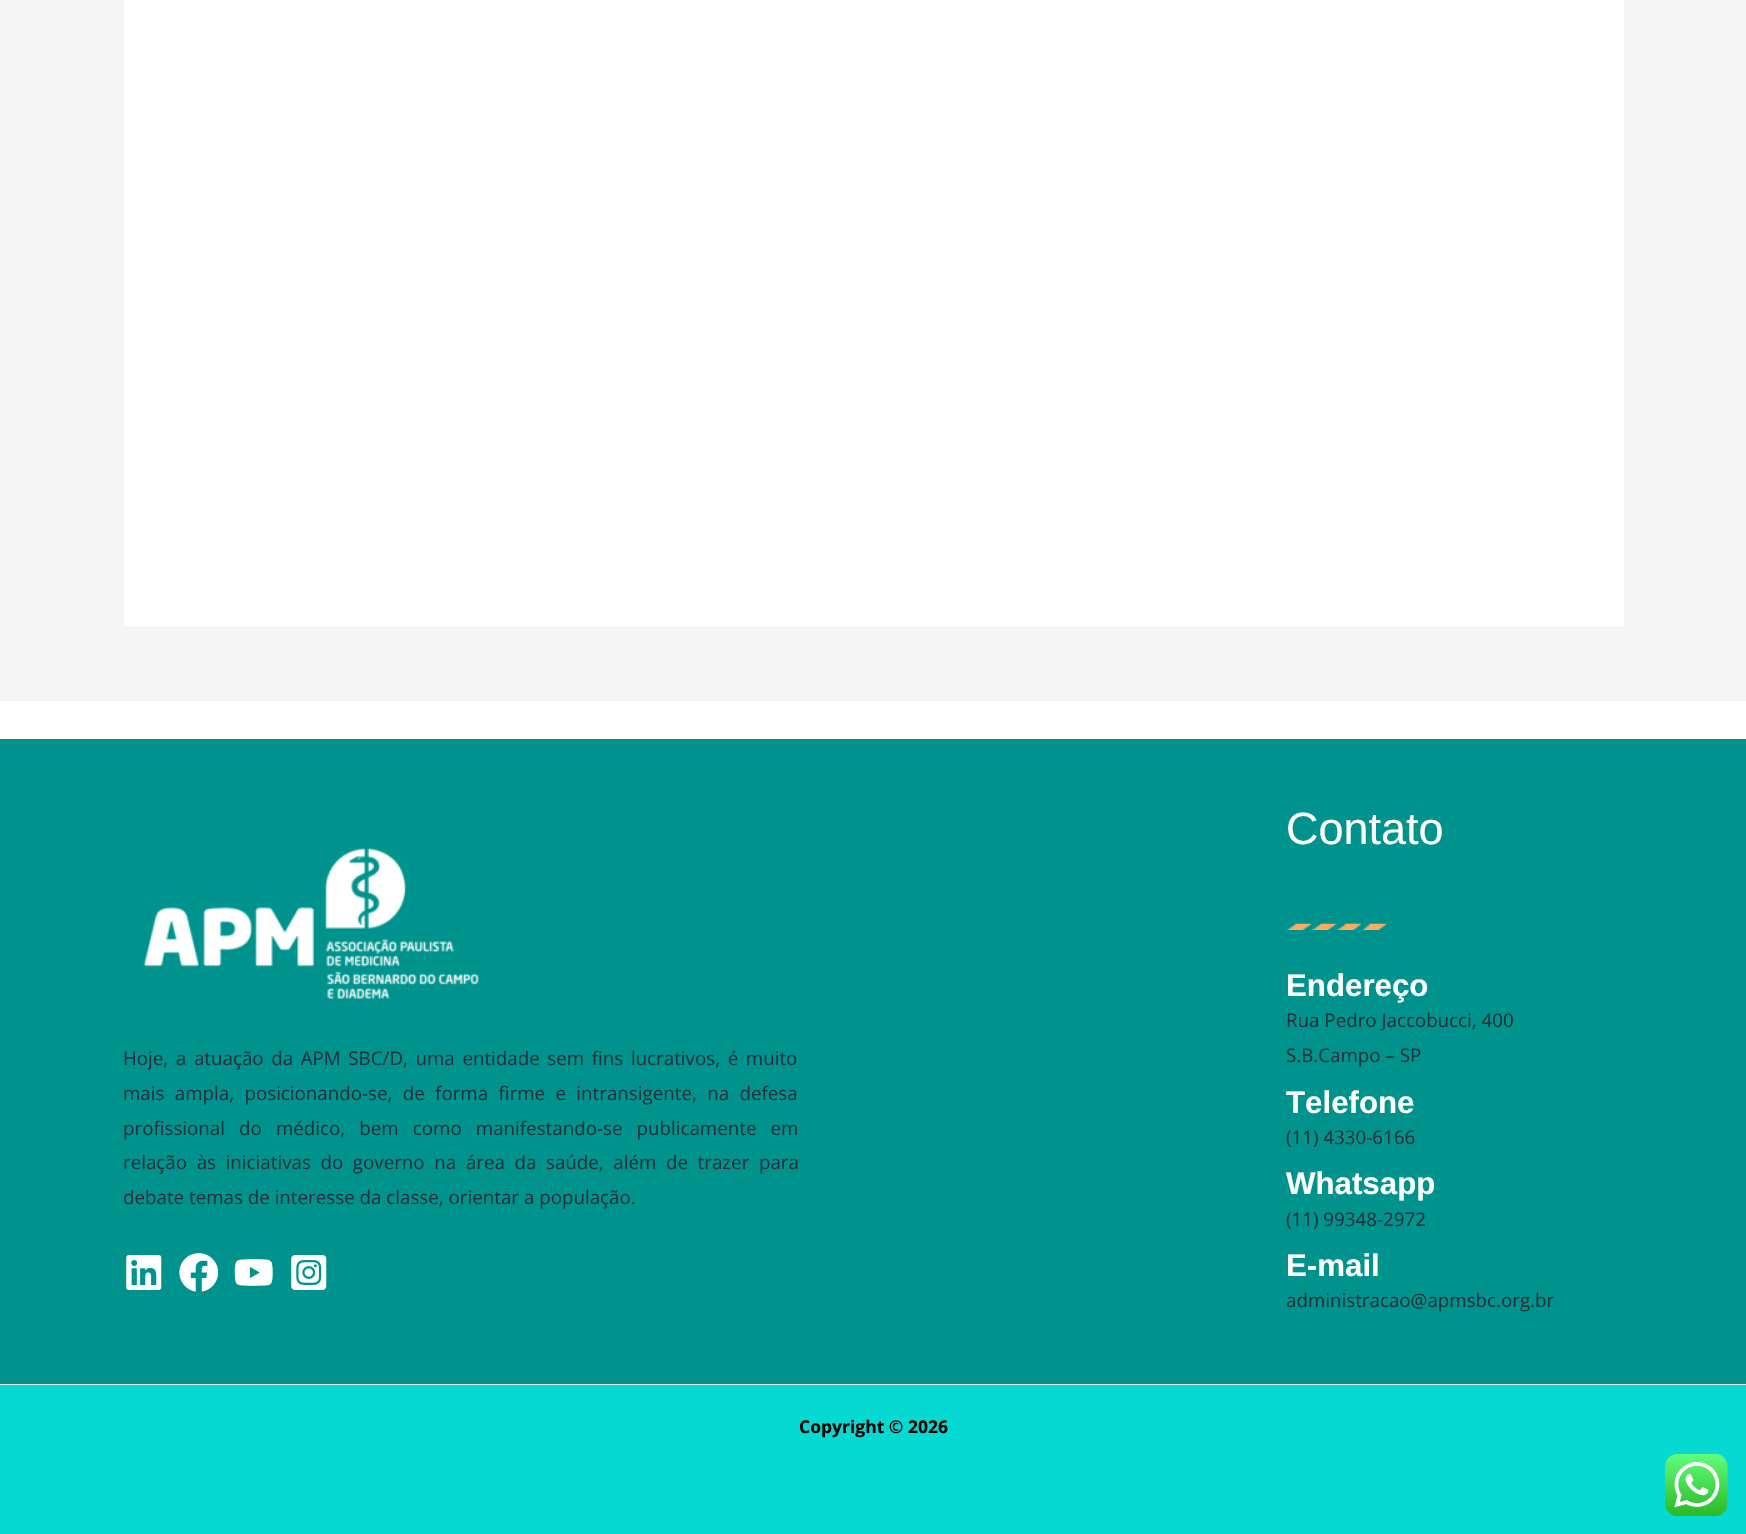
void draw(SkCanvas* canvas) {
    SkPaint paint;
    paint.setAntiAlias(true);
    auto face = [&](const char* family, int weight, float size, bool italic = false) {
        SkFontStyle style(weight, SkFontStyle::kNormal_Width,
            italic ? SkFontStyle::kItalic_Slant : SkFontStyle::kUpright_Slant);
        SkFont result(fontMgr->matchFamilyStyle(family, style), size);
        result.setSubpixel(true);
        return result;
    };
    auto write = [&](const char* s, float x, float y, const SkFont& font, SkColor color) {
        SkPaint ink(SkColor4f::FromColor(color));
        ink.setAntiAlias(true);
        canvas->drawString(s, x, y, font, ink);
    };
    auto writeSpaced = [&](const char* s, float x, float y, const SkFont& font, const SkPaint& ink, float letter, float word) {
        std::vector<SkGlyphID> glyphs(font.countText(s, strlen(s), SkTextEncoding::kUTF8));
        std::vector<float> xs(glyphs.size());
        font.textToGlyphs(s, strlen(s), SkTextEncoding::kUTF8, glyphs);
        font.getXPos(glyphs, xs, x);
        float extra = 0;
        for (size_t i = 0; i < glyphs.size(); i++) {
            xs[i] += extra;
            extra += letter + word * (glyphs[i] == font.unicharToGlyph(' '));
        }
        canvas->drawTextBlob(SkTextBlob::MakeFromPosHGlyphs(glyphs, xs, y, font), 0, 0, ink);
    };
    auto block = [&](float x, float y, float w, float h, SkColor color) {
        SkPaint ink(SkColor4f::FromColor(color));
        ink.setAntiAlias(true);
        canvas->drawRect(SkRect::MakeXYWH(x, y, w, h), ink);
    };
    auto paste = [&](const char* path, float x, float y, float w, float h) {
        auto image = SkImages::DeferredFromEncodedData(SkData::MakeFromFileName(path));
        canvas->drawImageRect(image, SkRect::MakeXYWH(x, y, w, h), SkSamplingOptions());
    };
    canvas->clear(SkColorSetRGB(245, 245, 245));
    block(124, 0, 1500, 626, SK_ColorWHITE);
    block(0, 701, 1746, 38, SK_ColorWHITE);
    block(0, 739, 1746, 645, SkColorSetRGB(0, 147, 141));
    paste("pic1.png", 143, 848, 336, 151);
    auto kFont1 = face("Open Sans", 400, 18.75f);
    paint.setColor(SkColorSetRGB(34, 50, 61));
    writeSpaced("Hoje, a atuação da APM SBC/D, uma entidade sem fins lucrativos, é muito", 123, 1065, kFont1, paint, 0, 2.75f);
    writeSpaced("mais ampla, posicionando-se, de forma firme e intransigente, na defesa", 123, 1100, kFont1, paint, 0, 5.5f);
    writeSpaced("profissional do médico, bem como manifestando-se publicamente em", 123, 1135, kFont1, paint, 0, 9.25f);
    writeSpaced("relação às iniciativas do governo na área da saúde, além de trazer para", 123, 1169, kFont1, paint, 0, 4.75f);
    write("debate temas de interesse da classe, orientar a população.", 123, 1204, kFont1, SkColorSetRGB(34, 50, 61));
    paste("pic2.png", 126, 1255, 36, 35);
    paste("pic3.png", 179, 1253, 40, 39);
    paste("pic4.png", 234, 1259, 39, 27);
    paste("pic5.png", 291, 1255, 36, 35);
    auto kFont2 = face("Liberation Sans", 400, 45);
    write("Contato", 1286, 844, kFont2, SK_ColorWHITE);
    paste("pic6.png", 1286, 923, 101, 7);
    auto kFont3 = face("Liberation Sans", 700, 31.25f);
    write("Endereço", 1286, 996, kFont3, SK_ColorWHITE);
    write("Rua Pedro Jaccobucci, 400", 1286, 1027, kFont1, SkColorSetRGB(34, 50, 61));
    write("S.B.Campo – SP", 1286, 1062, kFont1, SkColorSetRGB(34, 50, 61));
    write("Telefone", 1286, 1113, kFont3, SK_ColorWHITE);
    write("(11) 4330-6166", 1286, 1144, kFont1, SkColorSetRGB(34, 50, 61));
    write("Whatsapp", 1286, 1194, kFont3, SK_ColorWHITE);
    write("(11) 99348-2972", 1286, 1226, kFont1, SkColorSetRGB(34, 50, 61));
    write("E-mail", 1286, 1276, kFont3, SK_ColorWHITE);
    write("administracao@apmsbc.org.br", 1286, 1307, kFont1, SkColorSetRGB(34, 50, 61));
    block(0, 1385, 1746, 149, SkColorSetRGB(6, 217, 210));
    block(0, 1384, 1746, 1, SkColorSetRGB(231, 231, 231));
    auto kFont4 = face("Open Sans", 700, 17.5f);
    write("Copyright © 2026", 799, 1433, kFont4, SK_ColorBLACK);
    paste("pic7.png", 1665, 1454, 63, 62);
}
